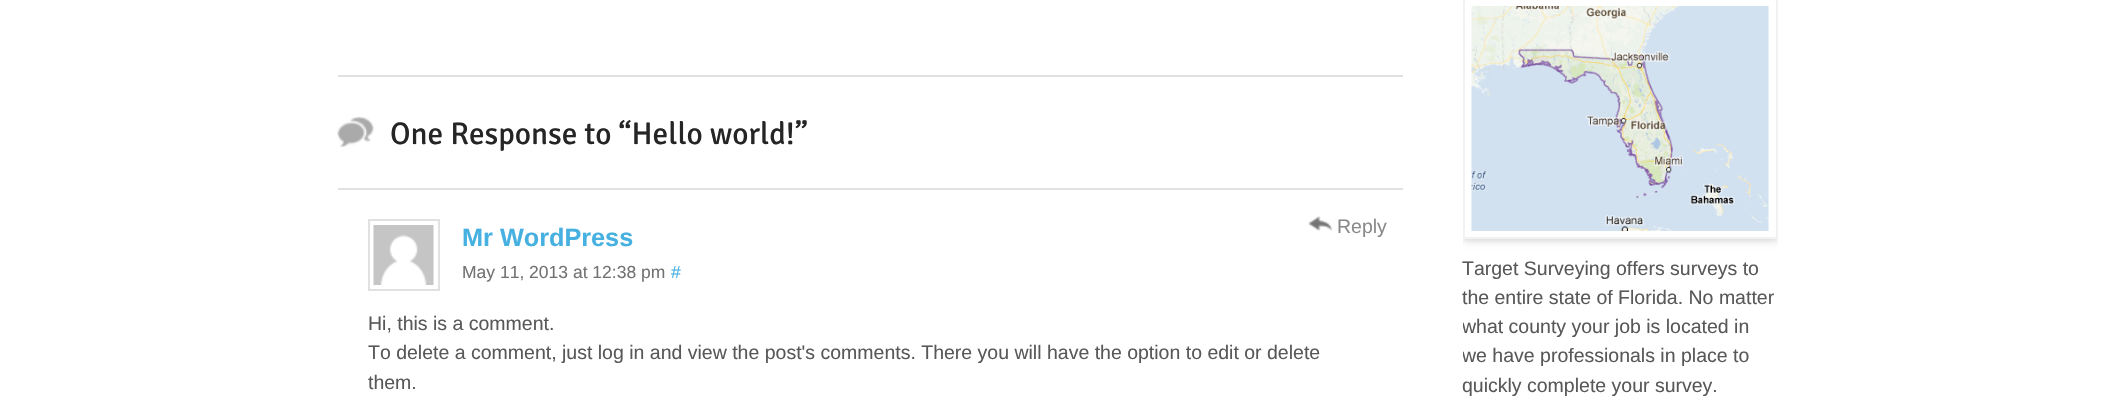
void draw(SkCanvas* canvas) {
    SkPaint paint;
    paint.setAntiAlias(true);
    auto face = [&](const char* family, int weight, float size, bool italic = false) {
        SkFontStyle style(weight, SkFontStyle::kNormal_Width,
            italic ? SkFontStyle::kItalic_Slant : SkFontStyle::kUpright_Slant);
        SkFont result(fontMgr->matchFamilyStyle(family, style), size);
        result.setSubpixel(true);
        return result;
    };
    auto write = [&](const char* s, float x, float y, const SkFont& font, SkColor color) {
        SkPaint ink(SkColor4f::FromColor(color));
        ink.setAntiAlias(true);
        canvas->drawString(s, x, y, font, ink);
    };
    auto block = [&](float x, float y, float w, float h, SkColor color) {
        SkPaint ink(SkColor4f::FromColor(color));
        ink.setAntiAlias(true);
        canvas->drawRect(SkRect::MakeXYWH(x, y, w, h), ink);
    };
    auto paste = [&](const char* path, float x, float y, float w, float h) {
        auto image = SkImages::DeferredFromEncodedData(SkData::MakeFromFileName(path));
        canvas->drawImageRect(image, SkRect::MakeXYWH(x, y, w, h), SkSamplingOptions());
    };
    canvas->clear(SK_ColorWHITE);
    block(338, 75, 1065, 2, SkColorSetRGB(225, 225, 225));
    paste("pic1.png", 337, 117, 37, 30);
    block(338, 188, 1065, 2, SkColorSetRGB(225, 225, 225));
    auto kFont1 = face("Signika", 400, 31.25f);
    write("One Response to “Hello world!”", 390, 144, kFont1, SkColorSetRGB(37, 37, 37));
    paste("pic2.png", 1308, 216, 24, 15);
    auto kFont2 = face("Liberation Sans", 400, 19.5f);
    write("Reply", 1337, 233, kFont2, SkColorSetRGB(138, 138, 138));
    write("Hi, this is a comment.", 368, 330, kFont2, SkColorSetRGB(88, 88, 88));
    write("To delete a comment, just log in and view the post's comments. There you will have the option to edit or delete", 368, 359, kFont2, SkColorSetRGB(88, 88, 88));
    write("them.", 368, 389, kFont2, SkColorSetRGB(88, 88, 88));
    paint.setStyle(SkPaint::kStroke_Style);
    paint.setStrokeWidth(2);
    paint.setColor(SkColorSetRGB(225, 225, 225));
    canvas->drawRect(SkRect::MakeXYWH(369, 220, 70, 70), paint);
    paste("pic3.png", 373, 225, 61, 60);
    auto kFont3 = face("Liberation Sans", 700, 25.25f);
    write("Mr WordPress", 462, 246, kFont3, SkColorSetRGB(70, 177, 225));
    auto kFont4 = face("Liberation Sans", 400, 17.5f);
    write("May 11, 2013 at 12:38 pm", 462, 278, kFont4, SkColorSetRGB(114, 114, 114));
    write("#", 671, 278, kFont4, SkColorSetRGB(70, 177, 225));
    canvas->save();
    canvas->clipRect(SkRect::MakeXYWH(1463, 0, 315, 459));
    canvas->clipPath(SkPathBuilder(SkPathFillType::kEvenOdd).moveTo(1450, 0).lineTo(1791, 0).lineTo(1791, 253).lineTo(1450, 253).close().moveTo(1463, -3).lineTo(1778, -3).lineTo(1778, 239).lineTo(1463, 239).close().detach(), true);
    paint.setStyle(SkPaint::kFill_Style);
    paint.setColor(SkColorSetARGB(51, 0, 0, 0));
    paint.setMaskFilter(SkMaskFilter::MakeBlur(kNormal_SkBlurStyle, 4));
    canvas->drawRect(SkRect::MakeXYWH(1463, -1, 315, 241), paint);
    paint.setMaskFilter(nullptr);
    canvas->restore();
    paint.setStyle(SkPaint::kStroke_Style);
    paint.setColor(SkColorSetARGB(13, 0, 0, 0));
    canvas->drawRect(SkRect::MakeXYWH(1464, -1, 313, 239), paint);
    paste("pic4.png", 1471, 6, 298, 225);
    write("Target Surveying offers surveys to", 1462, 275, kFont2, SkColorSetRGB(88, 88, 88));
    write("the entire state of Florida. No matter", 1462, 304, kFont2, SkColorSetRGB(88, 88, 88));
    canvas->save();
    canvas->clipRect(SkRect::MakeXYWH(1463, 0, 315, 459));
    write("what county your job is located in", 1462, 333, kFont2, SkColorSetRGB(88, 88, 88));
    write("we have professionals in place to", 1462, 362, kFont2, SkColorSetRGB(88, 88, 88));
    canvas->restore();
    write("quickly complete your survey.", 1462, 392, kFont2, SkColorSetRGB(88, 88, 88));
}
